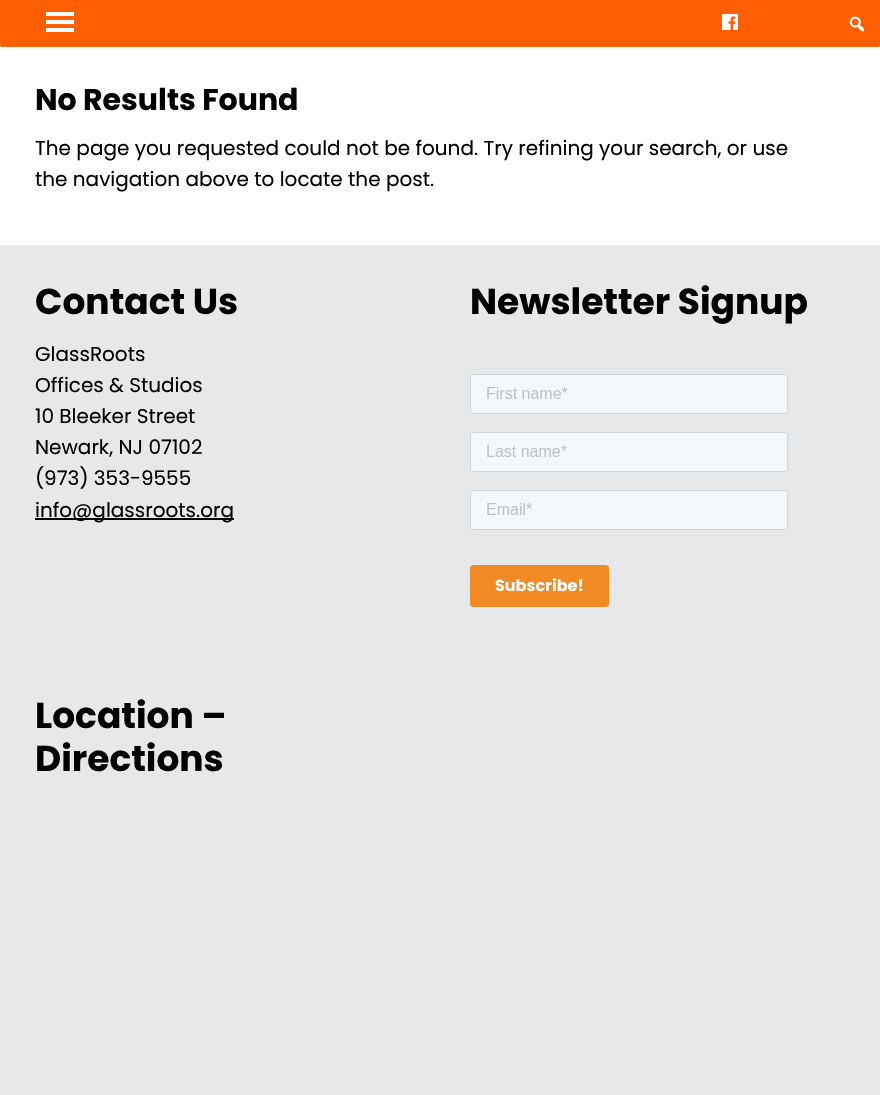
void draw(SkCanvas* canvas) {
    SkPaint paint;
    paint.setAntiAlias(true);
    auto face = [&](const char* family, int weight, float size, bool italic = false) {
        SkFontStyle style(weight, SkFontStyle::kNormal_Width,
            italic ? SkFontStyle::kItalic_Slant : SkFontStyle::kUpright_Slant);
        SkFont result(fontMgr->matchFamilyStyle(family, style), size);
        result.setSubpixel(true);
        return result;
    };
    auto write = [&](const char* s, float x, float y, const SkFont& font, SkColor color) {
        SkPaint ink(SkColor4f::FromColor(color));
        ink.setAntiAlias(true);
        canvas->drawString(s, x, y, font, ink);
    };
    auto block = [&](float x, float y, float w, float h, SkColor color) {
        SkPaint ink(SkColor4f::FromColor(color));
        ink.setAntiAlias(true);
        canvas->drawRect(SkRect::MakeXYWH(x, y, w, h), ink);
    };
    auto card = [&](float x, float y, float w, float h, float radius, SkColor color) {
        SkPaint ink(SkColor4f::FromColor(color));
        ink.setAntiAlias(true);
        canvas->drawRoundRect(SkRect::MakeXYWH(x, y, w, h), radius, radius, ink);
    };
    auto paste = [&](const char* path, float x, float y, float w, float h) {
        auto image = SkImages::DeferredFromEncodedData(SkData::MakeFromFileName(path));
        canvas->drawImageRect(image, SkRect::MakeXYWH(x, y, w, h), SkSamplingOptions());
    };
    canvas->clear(SK_ColorWHITE);
    card(0, -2, 880, 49, 2, SkColorSetRGB(255, 95, 0));
    paste("pic1.png", 46, 12, 28, 20);
    paste("pic2.png", 722, 14, 16, 16);
    paste("pic3.png", 849, 16, 16, 16);
    auto kFont1 = face("Poppins", 700, 30);
    write("No Results Found", 35, 110, kFont1, SK_ColorBLACK);
    auto kFont2 = face("Poppins", 400, 20);
    write("The page you requested could not be found. Try refining your search, or use", 35, 155, kFont2, SK_ColorBLACK);
    write("the navigation above to locate the post.", 35, 186, kFont2, SK_ColorBLACK);
    block(0, 245, 880, 850, SkColorSetRGB(231, 232, 233));
    auto kFont3 = face("Poppins", 700, 36);
    write("Contact Us", 35, 314, kFont3, SK_ColorBLACK);
    write("GlassRoots", 35, 361, kFont2, SK_ColorBLACK);
    write("Offices & Studios", 35, 392, kFont2, SK_ColorBLACK);
    write("10 Bleeker Street", 35, 423, kFont2, SK_ColorBLACK);
    write("Newark, NJ 07102", 35, 454, kFont2, SK_ColorBLACK);
    write("(973) 353-9555", 35, 485, kFont2, SK_ColorBLACK);
    block(35, 518, 199, 2, SK_ColorBLACK);
    write("info@glassroots.org", 35, 517, kFont2, SK_ColorBLACK);
    write("Newsletter Signup", 470, 314, kFont3, SK_ColorBLACK);
    paste("pic4.png", 470, 374, 318, 233);
    write("Location –", 35, 728, kFont3, SK_ColorBLACK);
    write("Directions", 35, 771, kFont3, SK_ColorBLACK);
}
